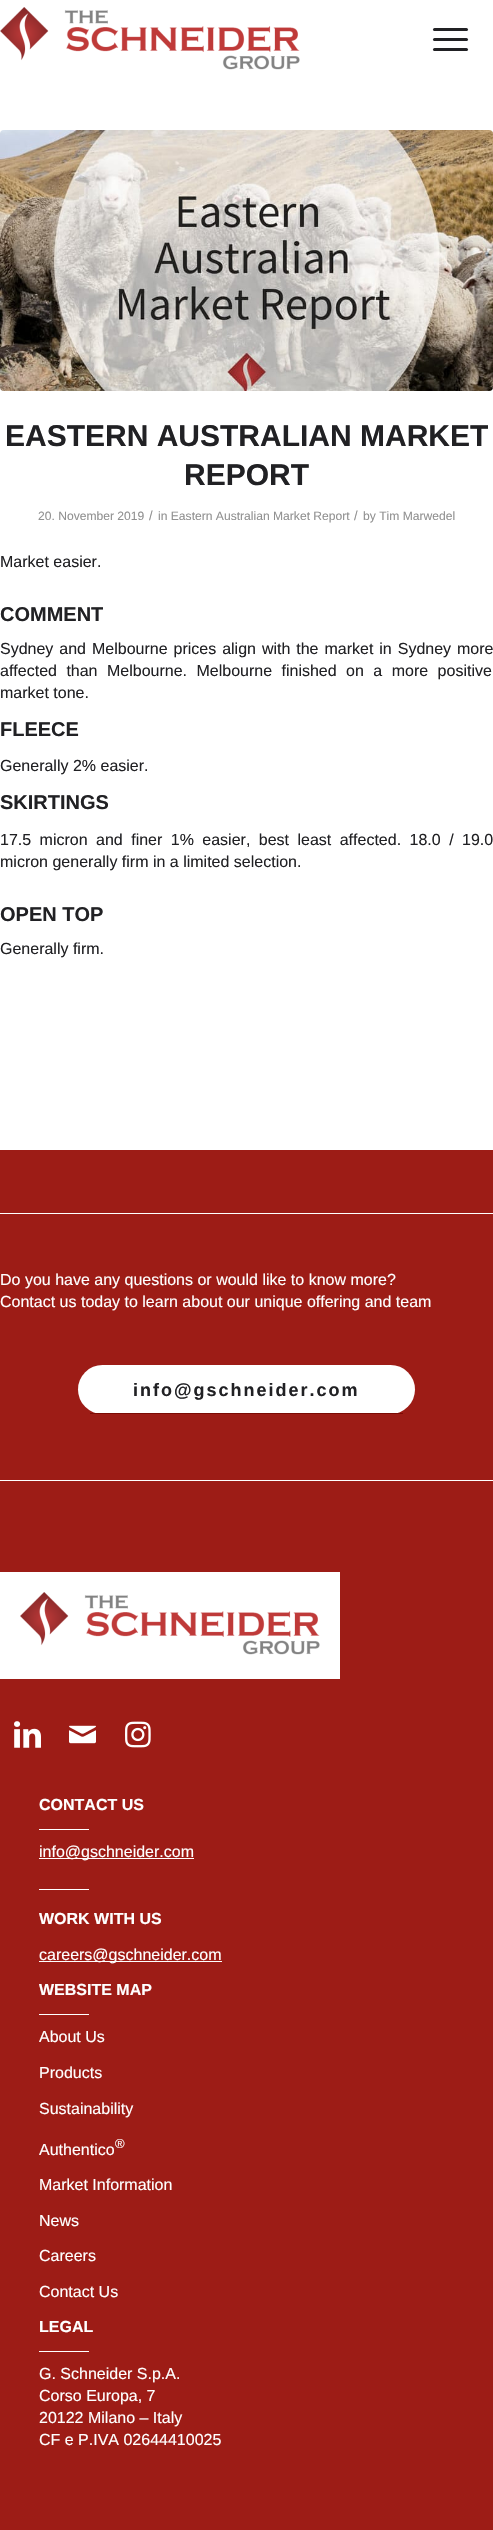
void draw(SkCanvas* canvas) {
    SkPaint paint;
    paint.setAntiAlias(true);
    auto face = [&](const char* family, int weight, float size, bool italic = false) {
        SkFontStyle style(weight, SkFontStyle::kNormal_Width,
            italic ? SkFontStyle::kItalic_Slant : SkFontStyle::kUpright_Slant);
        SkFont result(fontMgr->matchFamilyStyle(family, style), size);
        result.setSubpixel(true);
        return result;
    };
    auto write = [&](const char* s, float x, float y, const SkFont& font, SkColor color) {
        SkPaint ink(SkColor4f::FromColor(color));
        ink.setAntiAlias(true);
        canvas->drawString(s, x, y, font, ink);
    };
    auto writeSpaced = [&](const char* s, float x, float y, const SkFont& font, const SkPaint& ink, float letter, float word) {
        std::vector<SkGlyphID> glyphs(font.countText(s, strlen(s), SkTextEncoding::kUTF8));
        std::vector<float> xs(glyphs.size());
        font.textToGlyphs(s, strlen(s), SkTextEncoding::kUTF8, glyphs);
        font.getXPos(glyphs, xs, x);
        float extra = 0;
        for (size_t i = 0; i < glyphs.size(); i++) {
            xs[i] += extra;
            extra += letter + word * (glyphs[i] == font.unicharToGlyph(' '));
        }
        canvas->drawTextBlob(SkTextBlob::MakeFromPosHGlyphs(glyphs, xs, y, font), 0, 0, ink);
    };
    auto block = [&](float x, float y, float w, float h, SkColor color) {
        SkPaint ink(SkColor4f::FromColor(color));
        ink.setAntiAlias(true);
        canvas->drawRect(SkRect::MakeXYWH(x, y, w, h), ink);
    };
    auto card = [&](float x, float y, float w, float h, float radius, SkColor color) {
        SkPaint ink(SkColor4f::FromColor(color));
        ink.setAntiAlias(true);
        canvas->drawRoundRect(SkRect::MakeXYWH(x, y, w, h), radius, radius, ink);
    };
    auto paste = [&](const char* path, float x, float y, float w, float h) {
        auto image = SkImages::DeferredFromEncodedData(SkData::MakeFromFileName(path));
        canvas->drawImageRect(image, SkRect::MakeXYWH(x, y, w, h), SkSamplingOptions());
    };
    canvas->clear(SK_ColorWHITE);
    paste("pic1.png", 0, 7, 300, 63);
    card(433, 38, 35, 3, 1.5f, SkColorSetRGB(33, 33, 36));
    card(433, 28, 35, 3, 1.5f, SkColorSetRGB(33, 33, 36));
    card(433, 48, 35, 3, 1.5f, SkColorSetRGB(33, 33, 36));
    paste("pic2.png", 0, 130, 493, 261);
    auto kFont1 = face("Liberation Sans", 700, 30);
    write("EASTERN AUSTRALIAN MARKET", 5, 446, kFont1, SkColorSetRGB(33, 33, 36));
    write("REPORT", 184, 485, kFont1, SkColorSetRGB(33, 33, 36));
    auto kFont2 = face("Liberation Sans", 400, 12.1f);
    write("20. November 2019", 38, 520, kFont2, SkColorSetRGB(145, 145, 145));
    auto kFont3 = face("Liberation Sans", 400, 13);
    write("/", 149, 520, kFont3, SkColorSetRGB(145, 145, 145));
    write("in Eastern Australian Market Report", 158, 520, kFont2, SkColorSetRGB(145, 145, 145));
    write("/", 354, 520, kFont3, SkColorSetRGB(145, 145, 145));
    write("by Tim Marwedel", 363, 520, kFont2, SkColorSetRGB(145, 145, 145));
    auto kFont4 = face("Liberation Sans", 400, 16);
    write("Market easier.", 0, 567, kFont4, SkColorSetRGB(33, 33, 36));
    auto kFont5 = face("Liberation Sans", 700, 20);
    write("COMMENT", 0, 621, kFont5, SkColorSetRGB(33, 33, 36));
    paint.setColor(SkColorSetRGB(33, 33, 36));
    writeSpaced("Sydney and Melbourne prices align with the market in Sydney more", 0, 654, kFont4, paint, 0, 1.5f);
    writeSpaced("affected than Melbourne. Melbourne finished on a more positive", 0, 676, kFont4, paint, 0, 5);
    write("market tone.", 0, 698, kFont4, SkColorSetRGB(33, 33, 36));
    write("FLEECE", 0, 736, kFont5, SkColorSetRGB(33, 33, 36));
    write("Generally 2% easier.", 0, 771, kFont4, SkColorSetRGB(33, 33, 36));
    write("SKIRTINGS", 0, 809, kFont5, SkColorSetRGB(33, 33, 36));
    writeSpaced("17.5 micron and finer 1% easier, best least affected. 18.0 / 19.0", 0, 845, kFont4, paint, 0, 4);
    write("micron generally firm in a limited selection.", 0, 867, kFont4, SkColorSetRGB(33, 33, 36));
    write("OPEN TOP", 0, 921, kFont5, SkColorSetRGB(33, 33, 36));
    write("Generally firm.", 0, 954, kFont4, SkColorSetRGB(33, 33, 36));
    block(0, 1150, 493, 392, SkColorSetRGB(157, 28, 22));
    block(0, 1213, 493, 1, SK_ColorWHITE);
    write("Do you have any questions or would like to know more?", 0, 1285, kFont4, SK_ColorWHITE);
    write("Contact us today to learn about our unique offering and team", 0, 1307, kFont4, SK_ColorWHITE);
    card(78, 1365, 337, 49, 24.5f, SK_ColorWHITE);
    block(90, 1413, 313, 1, SkColorSetRGB(123, 11, 4));
    auto kFont6 = face("Liberation Sans", 700, 18);
    writeSpaced("info@gschneider.com", 133, 1396, kFont6, paint, 2, 0);
    block(0, 1480, 493, 1, SK_ColorWHITE);
    block(0, 1542, 493, 988, SkColorSetRGB(157, 28, 22));
    block(0, 1572, 340, 107, SK_ColorWHITE);
    paste("pic1.png", 20, 1592, 300, 63);
    paste("pic3.png", 14, 1721, 27, 27);
    paste("pic4.png", 69, 1725, 27, 19);
    paste("pic5.png", 125, 1721, 26, 27);
    auto kFont7 = face("Liberation Sans", 700, 16);
    write("CONTACT US", 39, 1810, kFont7, SK_ColorWHITE);
    block(39, 1829, 50, 1, SK_ColorWHITE);
    block(39, 1858, 155, 1, SK_ColorWHITE);
    write("info@gschneider.com", 39, 1857, kFont4, SK_ColorWHITE);
    block(39, 1889, 50, 1, SK_ColorWHITE);
    write("WORK WITH US", 39, 1924, kFont7, SK_ColorWHITE);
    block(39, 1961, 183, 1, SK_ColorWHITE);
    write("careers@gschneider.com", 39, 1960, kFont4, SK_ColorWHITE);
    write("WEBSITE MAP", 39, 1995, kFont7, SK_ColorWHITE);
    block(39, 2014, 50, 1, SK_ColorWHITE);
    write("About Us", 39, 2042, kFont4, SK_ColorWHITE);
    write("Products", 39, 2078, kFont4, SK_ColorWHITE);
    write("Sustainability", 39, 2114, kFont4, SK_ColorWHITE);
    write("Authentico", 39, 2155, kFont4, SK_ColorWHITE);
    write("®", 115, 2148, kFont3, SK_ColorWHITE);
    write("Market Information", 39, 2190, kFont4, SK_ColorWHITE);
    write("News", 39, 2226, kFont4, SK_ColorWHITE);
    write("Careers", 39, 2261, kFont4, SK_ColorWHITE);
    write("Contact Us", 39, 2297, kFont4, SK_ColorWHITE);
    write("LEGAL", 39, 2332, kFont7, SK_ColorWHITE);
    block(39, 2351, 50, 1, SK_ColorWHITE);
    write("G. Schneider S.p.A.", 39, 2379, kFont4, SK_ColorWHITE);
    write("Corso Europa, 7", 39, 2401, kFont4, SK_ColorWHITE);
    write("20122 Milano – Italy", 39, 2423, kFont4, SK_ColorWHITE);
    write("CF e P.IVA 02644410025", 39, 2445, kFont4, SK_ColorWHITE);
}
